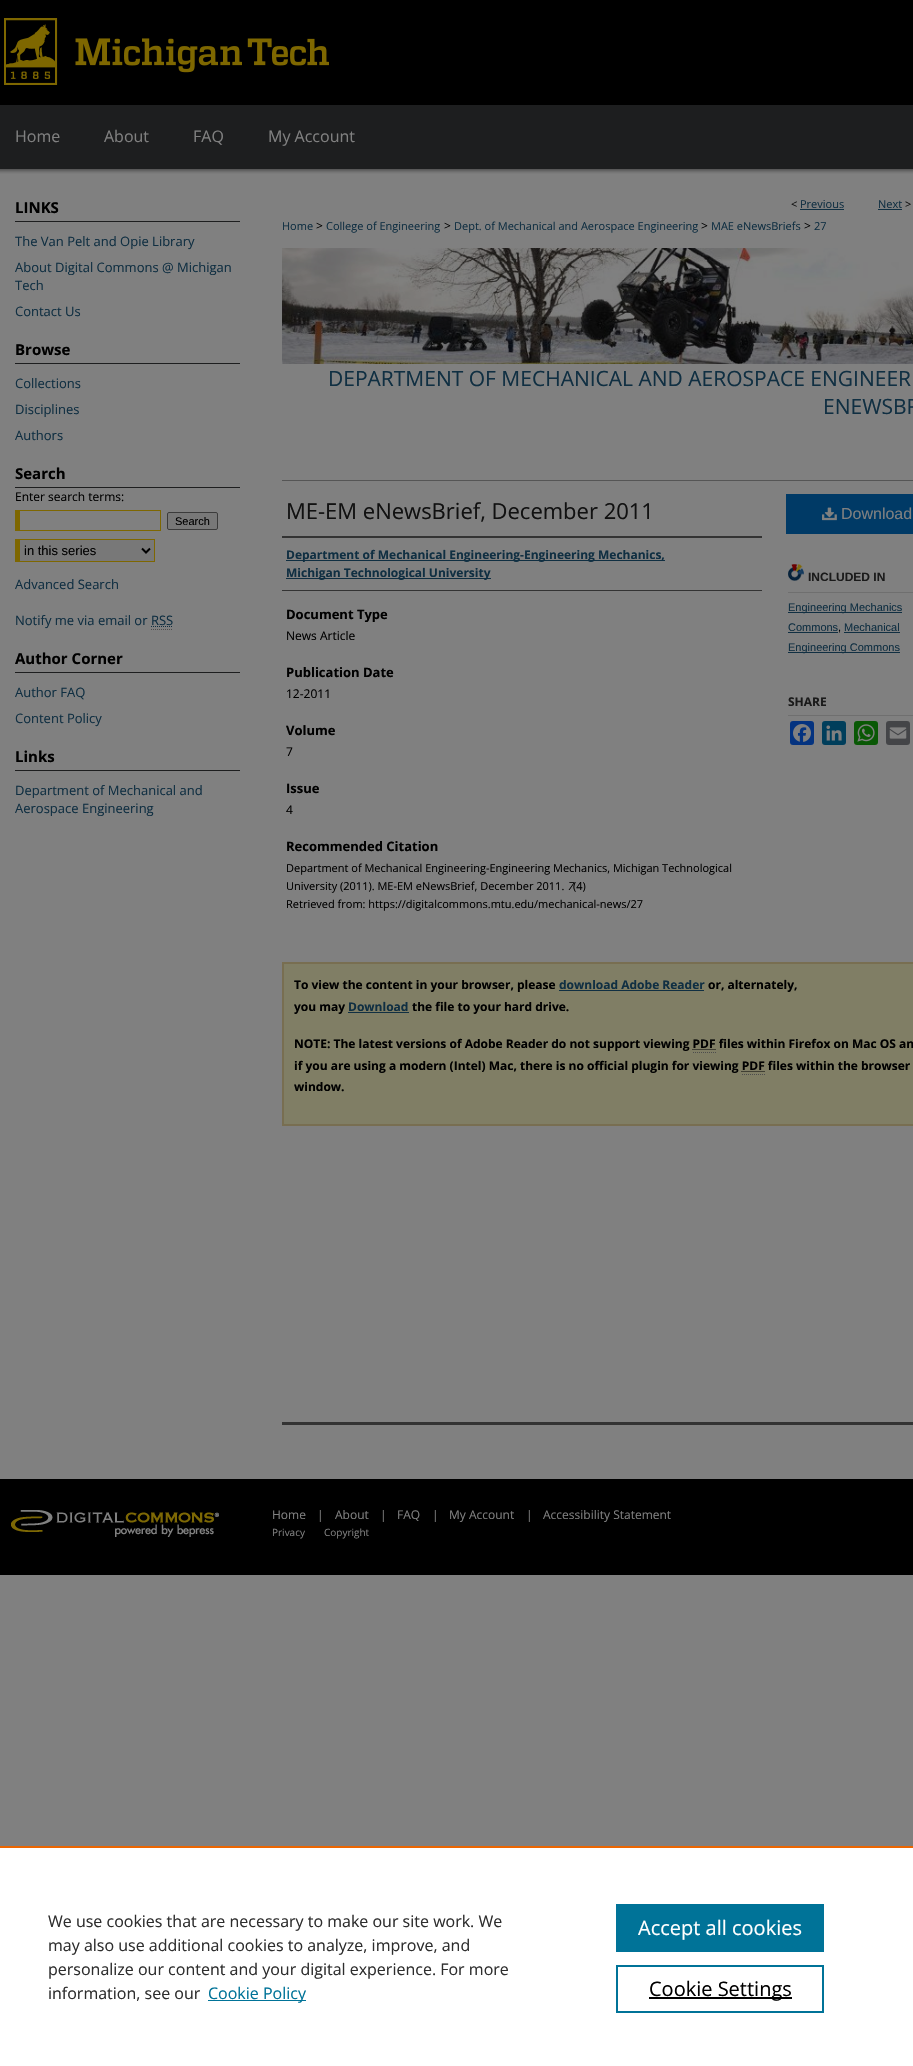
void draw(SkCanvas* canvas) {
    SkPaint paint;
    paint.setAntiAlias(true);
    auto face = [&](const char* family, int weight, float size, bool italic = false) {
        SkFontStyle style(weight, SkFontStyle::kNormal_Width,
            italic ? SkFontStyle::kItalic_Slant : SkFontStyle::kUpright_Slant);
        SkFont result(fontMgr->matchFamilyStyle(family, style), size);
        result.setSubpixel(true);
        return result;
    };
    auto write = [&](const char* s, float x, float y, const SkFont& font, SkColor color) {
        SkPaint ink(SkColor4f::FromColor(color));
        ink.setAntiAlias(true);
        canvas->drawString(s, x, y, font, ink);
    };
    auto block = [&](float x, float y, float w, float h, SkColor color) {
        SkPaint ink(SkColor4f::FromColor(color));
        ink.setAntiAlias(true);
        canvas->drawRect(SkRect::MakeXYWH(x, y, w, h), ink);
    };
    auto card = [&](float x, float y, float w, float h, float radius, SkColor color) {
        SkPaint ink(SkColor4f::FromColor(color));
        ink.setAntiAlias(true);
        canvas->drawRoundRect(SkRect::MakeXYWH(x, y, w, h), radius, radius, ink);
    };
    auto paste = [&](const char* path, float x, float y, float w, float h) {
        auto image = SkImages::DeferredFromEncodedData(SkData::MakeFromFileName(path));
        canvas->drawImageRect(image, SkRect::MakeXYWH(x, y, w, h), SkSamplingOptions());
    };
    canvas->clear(SkColorSetRGB(128, 128, 128));
    paste("pic1.png", 0, 0, 913, 174);
    block(240, 1479, 673, 96, SK_ColorBLACK);
    paste("pic2.png", 4, 18, 325, 67);
    auto kFont1 = face("Open Sans", 400, 16);
    write("Home", 15, 142, kFont1, SkColorSetRGB(128, 128, 128));
    write("About", 104, 142, kFont1, SkColorSetRGB(128, 128, 128));
    write("FAQ", 193, 142, kFont1, SkColorSetRGB(128, 128, 128));
    write("My Account", 268, 142, kFont1, SkColorSetRGB(128, 128, 128));
    block(15, 221, 225, 1, SkColorSetRGB(29, 30, 31));
    auto kFont2 = face("Open Sans", 700, 15);
    write("LINKS", 15, 213, kFont2, SK_ColorBLACK);
    auto kFont3 = face("Open Sans", 400, 13);
    write("The Van Pelt and Opie Library", 15, 246, kFont3, SkColorSetRGB(16, 47, 66));
    write("About Digital Commons @ Michigan", 15, 272, kFont3, SkColorSetRGB(16, 47, 66));
    write("Tech", 15, 290, kFont3, SkColorSetRGB(16, 47, 66));
    write("Contact Us", 15, 316, kFont3, SkColorSetRGB(16, 47, 66));
    block(15, 363, 225, 1, SkColorSetRGB(29, 30, 31));
    write("Browse", 15, 355, kFont2, SK_ColorBLACK);
    write("Collections", 15, 388, kFont3, SkColorSetRGB(16, 47, 66));
    write("Disciplines", 15, 414, kFont3, SkColorSetRGB(16, 47, 66));
    write("Authors", 15, 440, kFont3, SkColorSetRGB(16, 47, 66));
    block(15, 487, 225, 1, SkColorSetRGB(29, 30, 31));
    write("Search", 15, 479, kFont2, SK_ColorBLACK);
    auto kFont4 = face("Open Sans", 400, 12);
    write("Enter search terms:", 15, 501, kFont4, SK_ColorBLACK);
    block(15, 510, 146, 1, SkColorSetRGB(126, 103, 1));
    block(160, 510, 1, 21, SkColorSetRGB(126, 103, 1));
    block(15, 530, 146, 1, SkColorSetRGB(126, 103, 1));
    block(15, 510, 5, 21, SkColorSetRGB(126, 103, 1));
    paint.setColor(SkColorSetRGB(120, 120, 120));
    canvas->drawRoundRect(SkRect::MakeXYWH(167.5f, 512.5f, 50, 17), 1.5f, 1.5f, paint);
    paint.setStyle(SkPaint::kStroke_Style);
    paint.setStrokeWidth(1);
    paint.setColor(SkColorSetRGB(59, 59, 59));
    canvas->drawRoundRect(SkRect::MakeXYWH(167.5f, 512.5f, 50, 17), 1.5f, 1.5f, paint);
    auto kFont5 = face("Liberation Sans", 400, 11);
    write("Search", 175, 525, kFont5, SK_ColorBLACK);
    block(20, 540, 134, 21, SkColorSetRGB(120, 120, 120));
    block(15, 539, 140, 1, SkColorSetRGB(126, 103, 1));
    block(154, 539, 1, 23, SkColorSetRGB(126, 103, 1));
    block(15, 561, 140, 1, SkColorSetRGB(126, 103, 1));
    block(15, 539, 5, 23, SkColorSetRGB(126, 103, 1));
    paint.setStrokeWidth(2);
    paint.setColor(SK_ColorBLACK);
    canvas->drawPath(SkPathBuilder().moveTo(142, 548.5f).lineTo(146, 552.5f).lineTo(150, 548.5f).detach(), paint);
    auto kFont6 = face("Liberation Sans", 400, 13);
    write("in this series", 24, 555, kFont6, SK_ColorBLACK);
    write("Advanced Search", 15, 589, kFont3, SkColorSetRGB(16, 47, 66));
    write("Notify me via email or RSS", 15, 625, kFont3, SkColorSetRGB(16, 47, 66));
    paint.setStrokeWidth(1);
    paint.setColor(SkColorSetRGB(16, 47, 66));
    paint.setPathEffect(SkDashPathEffect::Make({{1, 1}}, 0));
    canvas->drawPath(SkPathBuilder().moveTo(151, 626.5f).lineTo(173, 626.5f).detach(), paint);
    paint.setPathEffect(nullptr);
    paint.setColor(SkColorSetRGB(77, 77, 77));
    paint.setPathEffect(SkDashPathEffect::Make({{1, 1}}, 0));
    canvas->drawPath(SkPathBuilder().moveTo(151, 629.5f).lineTo(173, 629.5f).detach(), paint);
    paint.setPathEffect(nullptr);
    block(15, 672, 225, 1, SkColorSetRGB(29, 30, 31));
    write("Author Corner", 15, 664, kFont2, SK_ColorBLACK);
    write("Author FAQ", 15, 697, kFont3, SkColorSetRGB(16, 47, 66));
    write("Content Policy", 15, 723, kFont3, SkColorSetRGB(16, 47, 66));
    block(15, 770, 225, 1, SkColorSetRGB(29, 30, 31));
    write("Links", 15, 762, kFont2, SK_ColorBLACK);
    write("Department of Mechanical and", 15, 795, kFont3, SkColorSetRGB(16, 47, 66));
    write("Aerospace Engineering", 15, 813, kFont3, SkColorSetRGB(16, 47, 66));
    auto kFont7 = face("Open Sans", 400, 11);
    write("<", 791, 208, kFont7, SkColorSetRGB(17, 17, 17));
    write("Previous", 800, 208, kFont7, SkColorSetRGB(16, 47, 66));
    block(800, 209, 44, 1, SkColorSetRGB(16, 47, 66));
    write("Next", 878, 208, kFont7, SkColorSetRGB(16, 47, 66));
    block(878, 209, 24, 1, SkColorSetRGB(16, 47, 66));
    write(">", 905, 208, kFont7, SkColorSetRGB(17, 17, 17));
    write("Home", 282, 230, kFont7, SkColorSetRGB(16, 47, 66));
    write(">", 316, 230, kFont4, SK_ColorBLACK);
    write("College of Engineering", 326, 230, kFont7, SkColorSetRGB(16, 47, 66));
    write(">", 444, 230, kFont4, SK_ColorBLACK);
    write("Dept. of Mechanical and Aerospace Engineering", 454, 230, kFont7, SkColorSetRGB(16, 47, 66));
    write(">", 701, 230, kFont4, SK_ColorBLACK);
    write("MAE eNewsBriefs", 711, 230, kFont7, SkColorSetRGB(16, 47, 66));
    write(">", 804, 230, kFont4, SK_ColorBLACK);
    write("27", 814, 230, kFont7, SkColorSetRGB(16, 47, 66));
    paste("pic3.png", 282, 248, 631, 116);
    auto kFont8 = face("Open Sans", 400, 21);
    write("DEPARTMENT OF MECHANICAL AND AEROSPACE ENGINEER", 328, 386, kFont8, SkColorSetRGB(16, 47, 66));
    write("ENEWSBR", 823, 414, kFont8, SkColorSetRGB(16, 47, 66));
    block(282, 480, 631, 1, SkColorSetRGB(85, 85, 85));
    auto kFont9 = face("Open Sans", 400, 22);
    write("ME-EM eNewsBrief, December 2011", 286, 519, kFont9, SkColorSetRGB(17, 17, 17));
    block(282, 536, 480, 2, SkColorSetRGB(51, 51, 51));
    block(282, 590, 480, 1, SkColorSetRGB(51, 51, 51));
    block(286, 560, 379, 1, SkColorSetRGB(16, 47, 66));
    auto kFont10 = face("Open Sans", 700, 12);
    write("Department of Mechanical Engineering-Engineering Mechanics,", 286, 559, kFont10, SkColorSetRGB(16, 47, 66));
    block(286, 578, 205, 1, SkColorSetRGB(16, 47, 66));
    write("Michigan Technological University", 286, 577, kFont10, SkColorSetRGB(16, 47, 66));
    auto kFont11 = face("Open Sans", 700, 13);
    write("Document Type", 286, 619, kFont11, SK_ColorBLACK);
    write("News Article", 286, 640, kFont4, SK_ColorBLACK);
    write("Publication Date", 286, 677, kFont11, SK_ColorBLACK);
    write("12-2011", 286, 698, kFont4, SK_ColorBLACK);
    write("Volume", 286, 735, kFont11, SK_ColorBLACK);
    write("7", 286, 756, kFont4, SK_ColorBLACK);
    write("Issue", 286, 793, kFont11, SK_ColorBLACK);
    write("4", 286, 814, kFont4, SK_ColorBLACK);
    write("Recommended Citation", 286, 851, kFont11, SK_ColorBLACK);
    write("Department of Mechanical Engineering-Engineering Mechanics, Michigan Technological", 286, 872, kFont7, SK_ColorBLACK);
    write("University (2011). ME-EM eNewsBrief, December 2011.", 286, 890, kFont7, SK_ColorBLACK);
    auto kFont12 = face("Open Sans", 400, 11, true);
    write("7", 567, 890, kFont12, SK_ColorBLACK);
    write("(4)", 573, 890, kFont7, SK_ColorBLACK);
    write("Retrieved from: https://digitalcommons.mtu.edu/mechanical-news/27", 286, 908, kFont7, SK_ColorBLACK);
    block(786, 494, 127, 40, SkColorSetRGB(0, 58, 102));
    paste("pic4.png", 822, 507, 15, 14);
    auto kFont13 = face("Liberation Sans", 400, 16);
    write("Download", 841, 519, kFont13, SkColorSetRGB(128, 128, 128));
    paste("pic5.png", 788, 564, 16, 17);
    block(788, 592, 125, 1, SkColorSetRGB(111, 111, 111));
    auto kFont14 = face("Liberation Sans", 700, 12);
    write("INCLUDED IN", 808, 581, kFont14, SkColorSetRGB(26, 26, 26));
    block(788, 612, 114, 1, SkColorSetRGB(16, 47, 66));
    write("Engineering Mechanics", 788, 611, kFont5, SkColorSetRGB(16, 47, 66));
    write("Commons", 788, 631, kFont5, SkColorSetRGB(16, 47, 66));
    block(788, 632, 50, 1, SkColorSetRGB(16, 47, 66));
    write(",", 838, 631, kFont5, SK_ColorBLACK);
    write("Mechanical", 844, 631, kFont5, SkColorSetRGB(16, 47, 66));
    block(844, 632, 56, 1, SkColorSetRGB(16, 47, 66));
    block(788, 652, 112, 1, SkColorSetRGB(16, 47, 66));
    write("Engineering Commons", 788, 651, kFont5, SkColorSetRGB(16, 47, 66));
    block(788, 715, 125, 1, SkColorSetRGB(111, 111, 111));
    write("SHARE", 788, 706, kFont10, SkColorSetRGB(26, 26, 26));
    card(790, 721, 24, 24, 3, SkColorSetRGB(4, 51, 128));
    paste("pic6.png", 793, 724, 18, 18);
    card(822, 721, 24, 24, 3, SkColorSetRGB(0, 62, 91));
    paste("pic7.png", 826, 725, 16, 16);
    card(854, 721, 24, 24, 3, SkColorSetRGB(9, 88, 5));
    paste("pic8.png", 857, 724, 18, 18);
    card(886, 721, 24, 24, 3, SkColorSetRGB(68, 69, 72));
    paste("pic9.png", 889, 727, 18, 12);
    block(282, 1422, 631, 3, SkColorSetRGB(51, 51, 51));
    paint.setStyle(SkPaint::kFill_Style);
    paint.setColor(SkColorSetRGB(128, 126, 101));
    canvas->drawRect(SkRect::MakeXYWH(283, 963, 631, 162), paint);
    paint.setStyle(SkPaint::kStroke_Style);
    paint.setStrokeWidth(2);
    paint.setColor(SkColorSetRGB(120, 110, 81));
    canvas->drawRect(SkRect::MakeXYWH(283, 963, 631, 162), paint);
    write("To view the content in your browser, please", 294, 989, kFont10, SK_ColorBLACK);
    write("download Adobe Reader", 559, 989, kFont10, SkColorSetRGB(16, 47, 66));
    block(559, 990, 145, 1, SkColorSetRGB(16, 47, 66));
    write("or, alternately,", 708, 989, kFont10, SK_ColorBLACK);
    write("you may", 294, 1011, kFont10, SK_ColorBLACK);
    write("Download", 348, 1011, kFont10, SkColorSetRGB(16, 47, 66));
    block(348, 1012, 61, 1, SkColorSetRGB(16, 47, 66));
    write("the file to your hard drive.", 412, 1011, kFont10, SK_ColorBLACK);
    write("NOTE: The latest versions of Adobe Reader do not support viewing PDF files within Firefox on Mac OS an", 294, 1048, kFont10, SK_ColorBLACK);
    paint.setStrokeWidth(1);
    paint.setColor(SK_ColorBLACK);
    paint.setPathEffect(SkDashPathEffect::Make({{1, 1}}, 0));
    canvas->drawPath(SkPathBuilder().moveTo(692.5f, 1049.5f).lineTo(715.5f, 1049.5f).detach(), paint);
    paint.setPathEffect(nullptr);
    paint.setColor(SkColorSetRGB(77, 77, 77));
    paint.setPathEffect(SkDashPathEffect::Make({{1, 1}}, 0));
    canvas->drawPath(SkPathBuilder().moveTo(693, 1052.5f).lineTo(716, 1052.5f).detach(), paint);
    paint.setPathEffect(nullptr);
    write("if you are using a modern (Intel) Mac, there is no official plugin for viewing PDF files within the browser", 294, 1070, kFont10, SK_ColorBLACK);
    paint.setColor(SK_ColorBLACK);
    paint.setPathEffect(SkDashPathEffect::Make({{1, 1}}, 0));
    canvas->drawPath(SkPathBuilder().moveTo(741.5f, 1071.5f).lineTo(765, 1071.5f).detach(), paint);
    paint.setPathEffect(nullptr);
    paint.setColor(SkColorSetRGB(77, 77, 77));
    paint.setPathEffect(SkDashPathEffect::Make({{1, 1}}, 0));
    canvas->drawPath(SkPathBuilder().moveTo(742, 1074.5f).lineTo(765, 1074.5f).detach(), paint);
    paint.setPathEffect(nullptr);
    write("window.", 294, 1091, kFont10, SK_ColorBLACK);
    paste("pic10.png", 0, 1479, 240, 96);
    write("Home", 272, 1519, kFont4, SkColorSetRGB(128, 128, 128));
    write("|", 317, 1519, kFont4, SkColorSetRGB(128, 128, 128));
    write("About", 335, 1519, kFont4, SkColorSetRGB(128, 128, 128));
    write("|", 380, 1519, kFont4, SkColorSetRGB(128, 128, 128));
    write("FAQ", 397, 1519, kFont4, SkColorSetRGB(128, 128, 128));
    write("|", 432, 1519, kFont4, SkColorSetRGB(128, 128, 128));
    write("My Account", 449, 1519, kFont4, SkColorSetRGB(128, 128, 128));
    write("|", 526, 1519, kFont4, SkColorSetRGB(128, 128, 128));
    write("Accessibility Statement", 543, 1519, kFont4, SkColorSetRGB(128, 128, 128));
    auto kFont15 = face("Open Sans", 400, 10);
    write("Privacy", 272, 1536, kFont15, SkColorSetRGB(128, 128, 128));
    write("Copyright", 324, 1536, kFont15, SkColorSetRGB(128, 128, 128));
    block(0, 1848, 913, 218, SK_ColorWHITE);
    block(0, 1846, 913, 2, SkColorSetRGB(235, 101, 0));
    write("We use cookies that are necessary to make our site work. We", 48, 1927, kFont1, SkColorSetRGB(46, 46, 46));
    write("may also use additional cookies to analyze, improve, and", 48, 1951, kFont1, SkColorSetRGB(46, 46, 46));
    write("personalize our content and your digital experience. For more", 48, 1975, kFont1, SkColorSetRGB(46, 46, 46));
    write("information, see our", 48, 1999, kFont1, SkColorSetRGB(46, 46, 46));
    block(208, 2000, 98, 1, SkColorSetRGB(0, 115, 152));
    write("Cookie Policy", 208, 1999, kFont1, SkColorSetRGB(0, 115, 152));
    block(616, 1904, 208, 48, SkColorSetRGB(0, 115, 152));
    auto kFont16 = face("Open Sans", 400, 20);
    write("Accept all cookies", 638, 1935, kFont16, SK_ColorWHITE);
    paint.setStrokeWidth(2);
    paint.setColor(SkColorSetRGB(0, 115, 152));
    canvas->drawRect(SkRect::MakeXYWH(617, 1966, 206, 46), paint);
    block(649, 1997, 143, 2, SK_ColorBLACK);
    write("Cookie Settings", 649, 1996, kFont16, SK_ColorBLACK);
}
